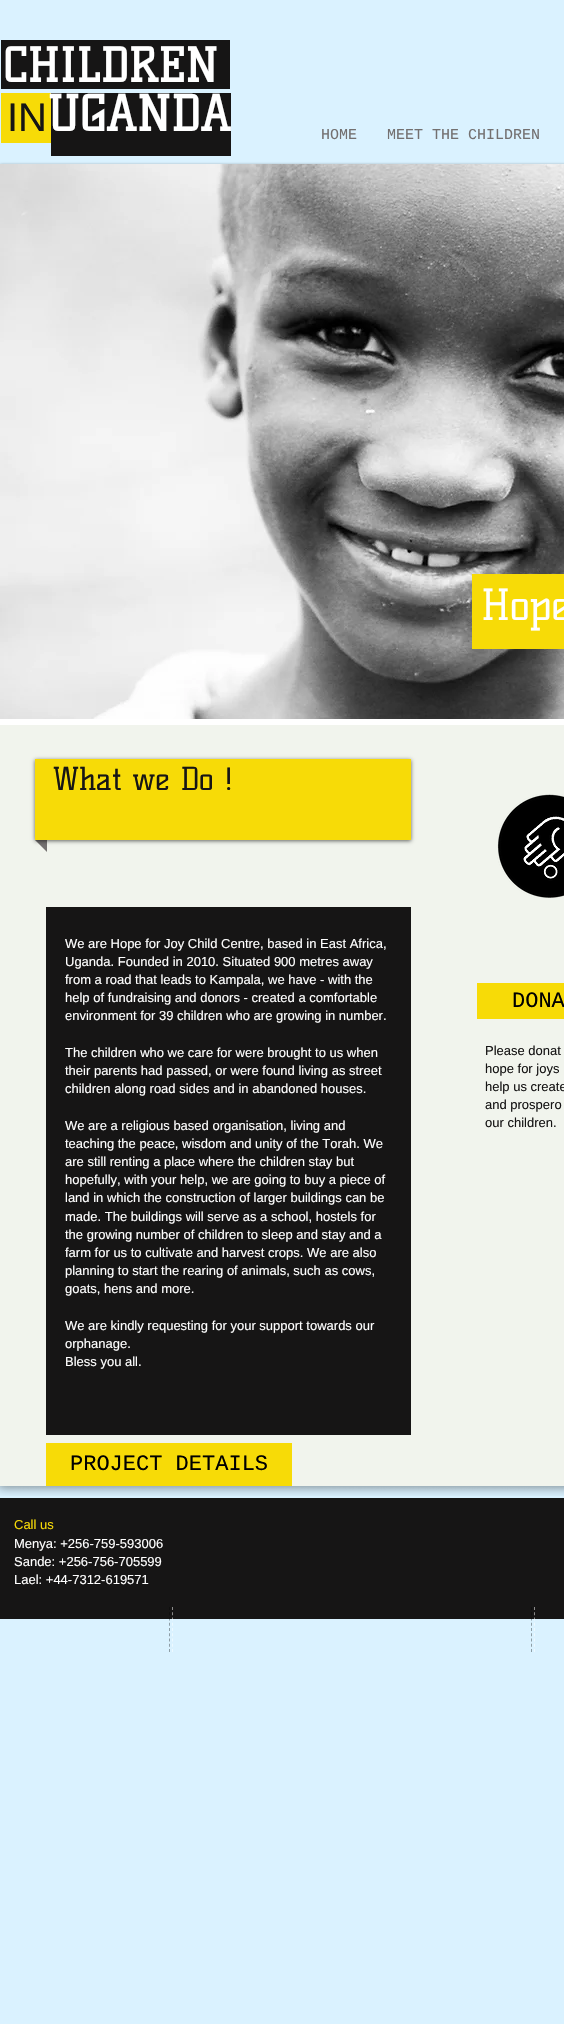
void draw(SkCanvas* canvas) {
    SkPaint paint;
    paint.setAntiAlias(true);
    auto face = [&](const char* family, int weight, float size, bool italic = false) {
        SkFontStyle style(weight, SkFontStyle::kNormal_Width,
            italic ? SkFontStyle::kItalic_Slant : SkFontStyle::kUpright_Slant);
        SkFont result(fontMgr->matchFamilyStyle(family, style), size);
        result.setSubpixel(true);
        return result;
    };
    auto write = [&](const char* s, float x, float y, const SkFont& font, SkColor color) {
        SkPaint ink(SkColor4f::FromColor(color));
        ink.setAntiAlias(true);
        canvas->drawString(s, x, y, font, ink);
    };
    auto block = [&](float x, float y, float w, float h, SkColor color) {
        SkPaint ink(SkColor4f::FromColor(color));
        ink.setAntiAlias(true);
        canvas->drawRect(SkRect::MakeXYWH(x, y, w, h), ink);
    };
    auto paste = [&](const char* path, float x, float y, float w, float h) {
        auto image = SkImages::DeferredFromEncodedData(SkData::MakeFromFileName(path));
        canvas->drawImageRect(image, SkRect::MakeXYWH(x, y, w, h), SkSamplingOptions());
    };
    canvas->clear(SkColorSetRGB(218, 242, 255));
    block(1, 40, 229, 49, SkColorSetRGB(22, 21, 21));
    auto kFont1 = face("Kelly Slab", 700, 46);
    write("CHILDREN", 3, 82, kFont1, SK_ColorWHITE);
    block(51, 93, 180, 63, SkColorSetRGB(22, 21, 21));
    block(1, 93, 50, 50, SkColorSetRGB(247, 219, 7));
    auto kFont2 = face("Liberation Sans", 400, 40);
    write("IN", 7, 131, kFont2, SkColorSetRGB(22, 21, 21));
    auto kFont3 = face("Kelly Slab", 700, 48);
    write("UGANDA", 47, 131, kFont3, SK_ColorWHITE);
    auto kFont4 = face("Liberation Mono", 400, 15);
    write("HOME", 321, 139, kFont4, SkColorSetRGB(115, 112, 112));
    write("MEET THE CHILDREN", 387, 139, kFont4, SkColorSetRGB(115, 112, 112));
    block(0, 725, 564, 761, SkColorSetRGB(241, 244, 237));
    paint.setColor(SkColorSetARGB(128, 0, 0, 0));
    paint.setMaskFilter(SkMaskFilter::MakeBlur(kNormal_SkBlurStyle, 1.5f));
    canvas->drawRect(SkRect::MakeXYWH(0, 165, 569, 556), paint);
    paint.setMaskFilter(nullptr);
    paste("pic1.png", 0, 164, 564, 555);
    block(472, 574, 92, 75, SkColorSetRGB(247, 219, 7));
    auto kFont5 = face("Kelly Slab", 400, 42);
    write("Hope", 481, 620, kFont5, SK_ColorWHITE);
    block(0, 719, 564, 6, SK_ColorWHITE);
    paint.setColor(SkColorSetRGB(115, 112, 112));
    canvas->drawPath(SkPathBuilder().moveTo(35, 840).lineTo(47, 840).lineTo(47, 852).close().detach(), paint);
    paint.setColor(SkColorSetARGB(153, 0, 0, 0));
    paint.setMaskFilter(SkMaskFilter::MakeBlur(kNormal_SkBlurStyle, 2));
    canvas->drawRect(SkRect::MakeXYWH(35, 760, 376, 81), paint);
    paint.setMaskFilter(nullptr);
    block(35, 759, 376, 81, SkColorSetRGB(247, 219, 7));
    auto kFont6 = face("Kelly Slab", 400, 31);
    write("What we Do !", 53, 790, kFont6, SkColorSetRGB(22, 21, 21));
    paste("pic2.png", 497, 794, 67, 104);
    block(46, 907, 365, 528, SkColorSetRGB(22, 21, 21));
    auto kFont7 = face("Liberation Sans", 400, 13);
    write("We are Hope for Joy Child Centre, based in East Africa,", 65, 948, kFont7, SK_ColorWHITE);
    write("Uganda. Founded in 2010. Situated 900 metres away", 65, 966, kFont7, SK_ColorWHITE);
    write("from a road that leads to Kampala, we have - with the", 65, 984, kFont7, SK_ColorWHITE);
    write("help of fundraising and donors - created a comfortable", 65, 1002, kFont7, SK_ColorWHITE);
    write("environment for 39 children who are growing in number.", 65, 1020, kFont7, SK_ColorWHITE);
    write("The children who we care for were brought to us when", 65, 1057, kFont7, SK_ColorWHITE);
    write("their parents had passed, or were found living as street", 65, 1075, kFont7, SK_ColorWHITE);
    write("children along road sides and in abandoned houses.", 65, 1093, kFont7, SK_ColorWHITE);
    write("We are a religious based organisation, living and", 65, 1130, kFont7, SK_ColorWHITE);
    write("teaching the peace, wisdom and unity of the Torah. We", 65, 1148, kFont7, SK_ColorWHITE);
    write("are still renting a place where the children stay but", 65, 1166, kFont7, SK_ColorWHITE);
    write("hopefully, with your help, we are going to buy a piece of", 65, 1184, kFont7, SK_ColorWHITE);
    write("land in which the construction of larger buildings can be", 65, 1202, kFont7, SK_ColorWHITE);
    write("made. The buildings will serve as a school, hostels for", 65, 1221, kFont7, SK_ColorWHITE);
    write("the growing number of children to sleep and stay and a", 65, 1239, kFont7, SK_ColorWHITE);
    write("farm for us to cultivate and harvest crops. We are also", 65, 1257, kFont7, SK_ColorWHITE);
    write("planning to start the rearing of animals, such as cows,", 65, 1275, kFont7, SK_ColorWHITE);
    write("goats, hens and more.", 65, 1293, kFont7, SK_ColorWHITE);
    write("We are kindly requesting for your support towards our", 65, 1330, kFont7, SK_ColorWHITE);
    write("orphanage.", 65, 1348, kFont7, SK_ColorWHITE);
    write("Bless you all.", 65, 1366, kFont7, SK_ColorWHITE);
    block(477, 983, 87, 36, SkColorSetRGB(247, 219, 7));
    auto kFont8 = face("Liberation Mono", 400, 22);
    write("DONA", 512, 1007, kFont8, SK_ColorBLACK);
    write("Please donat", 485, 1055, kFont7, SkColorSetRGB(22, 21, 21));
    write("hope for joys", 485, 1073, kFont7, SkColorSetRGB(22, 21, 21));
    write("help us create", 485, 1091, kFont7, SkColorSetRGB(22, 21, 21));
    write("and prospero", 485, 1109, kFont7, SkColorSetRGB(22, 21, 21));
    write("our children.", 485, 1127, kFont7, SkColorSetRGB(22, 21, 21));
    block(46, 1443, 246, 43, SkColorSetRGB(247, 219, 7));
    write("PROJECT DETAILS", 70, 1470, kFont8, SK_ColorBLACK);
    paste("pic3.png", 0, 1486, 35, 10);
    paste("pic4.png", 35, 1486, 529, 10);
    block(0, 1498, 564, 121, SkColorSetRGB(22, 21, 21));
    write("Call us", 14, 1529, kFont7, SkColorSetRGB(247, 219, 7));
    write("Menya: +256-759-593006", 14, 1548, kFont7, SK_ColorWHITE);
    write("Sande: +256-756-705599", 14, 1566, kFont7, SK_ColorWHITE);
    write("Lael: +44-7312-619571", 14, 1584, kFont7, SK_ColorWHITE);
    paint.setStyle(SkPaint::kStroke_Style);
    paint.setStrokeWidth(1);
    paint.setColor(SkColorSetARGB(128, 255, 255, 255));
    paint.setPathEffect(SkDashPathEffect::Make({{3, 2.25f}}, 0));
    canvas->drawPath(SkPathBuilder().moveTo(172.5f, 1607).lineTo(172.5f, 1652).detach(), paint);
    paint.setPathEffect(nullptr);
    paint.setColor(SkColorSetARGB(89, 0, 0, 0));
    paint.setPathEffect(SkDashPathEffect::Make({{3, 2.25f}}, 0));
    canvas->drawPath(SkPathBuilder().moveTo(169.5f, 1607).lineTo(169.5f, 1652).detach(), paint);
    paint.setPathEffect(nullptr);
    paint.setColor(SkColorSetARGB(128, 255, 255, 255));
    paint.setPathEffect(SkDashPathEffect::Make({{3, 2.25f}}, 0));
    canvas->drawPath(SkPathBuilder().moveTo(534.5f, 1607).lineTo(534.5f, 1652).detach(), paint);
    paint.setPathEffect(nullptr);
    paint.setColor(SkColorSetARGB(89, 0, 0, 0));
    paint.setPathEffect(SkDashPathEffect::Make({{3, 2.25f}}, 0));
    canvas->drawPath(SkPathBuilder().moveTo(531.5f, 1607).lineTo(531.5f, 1652).detach(), paint);
    paint.setPathEffect(nullptr);
}
